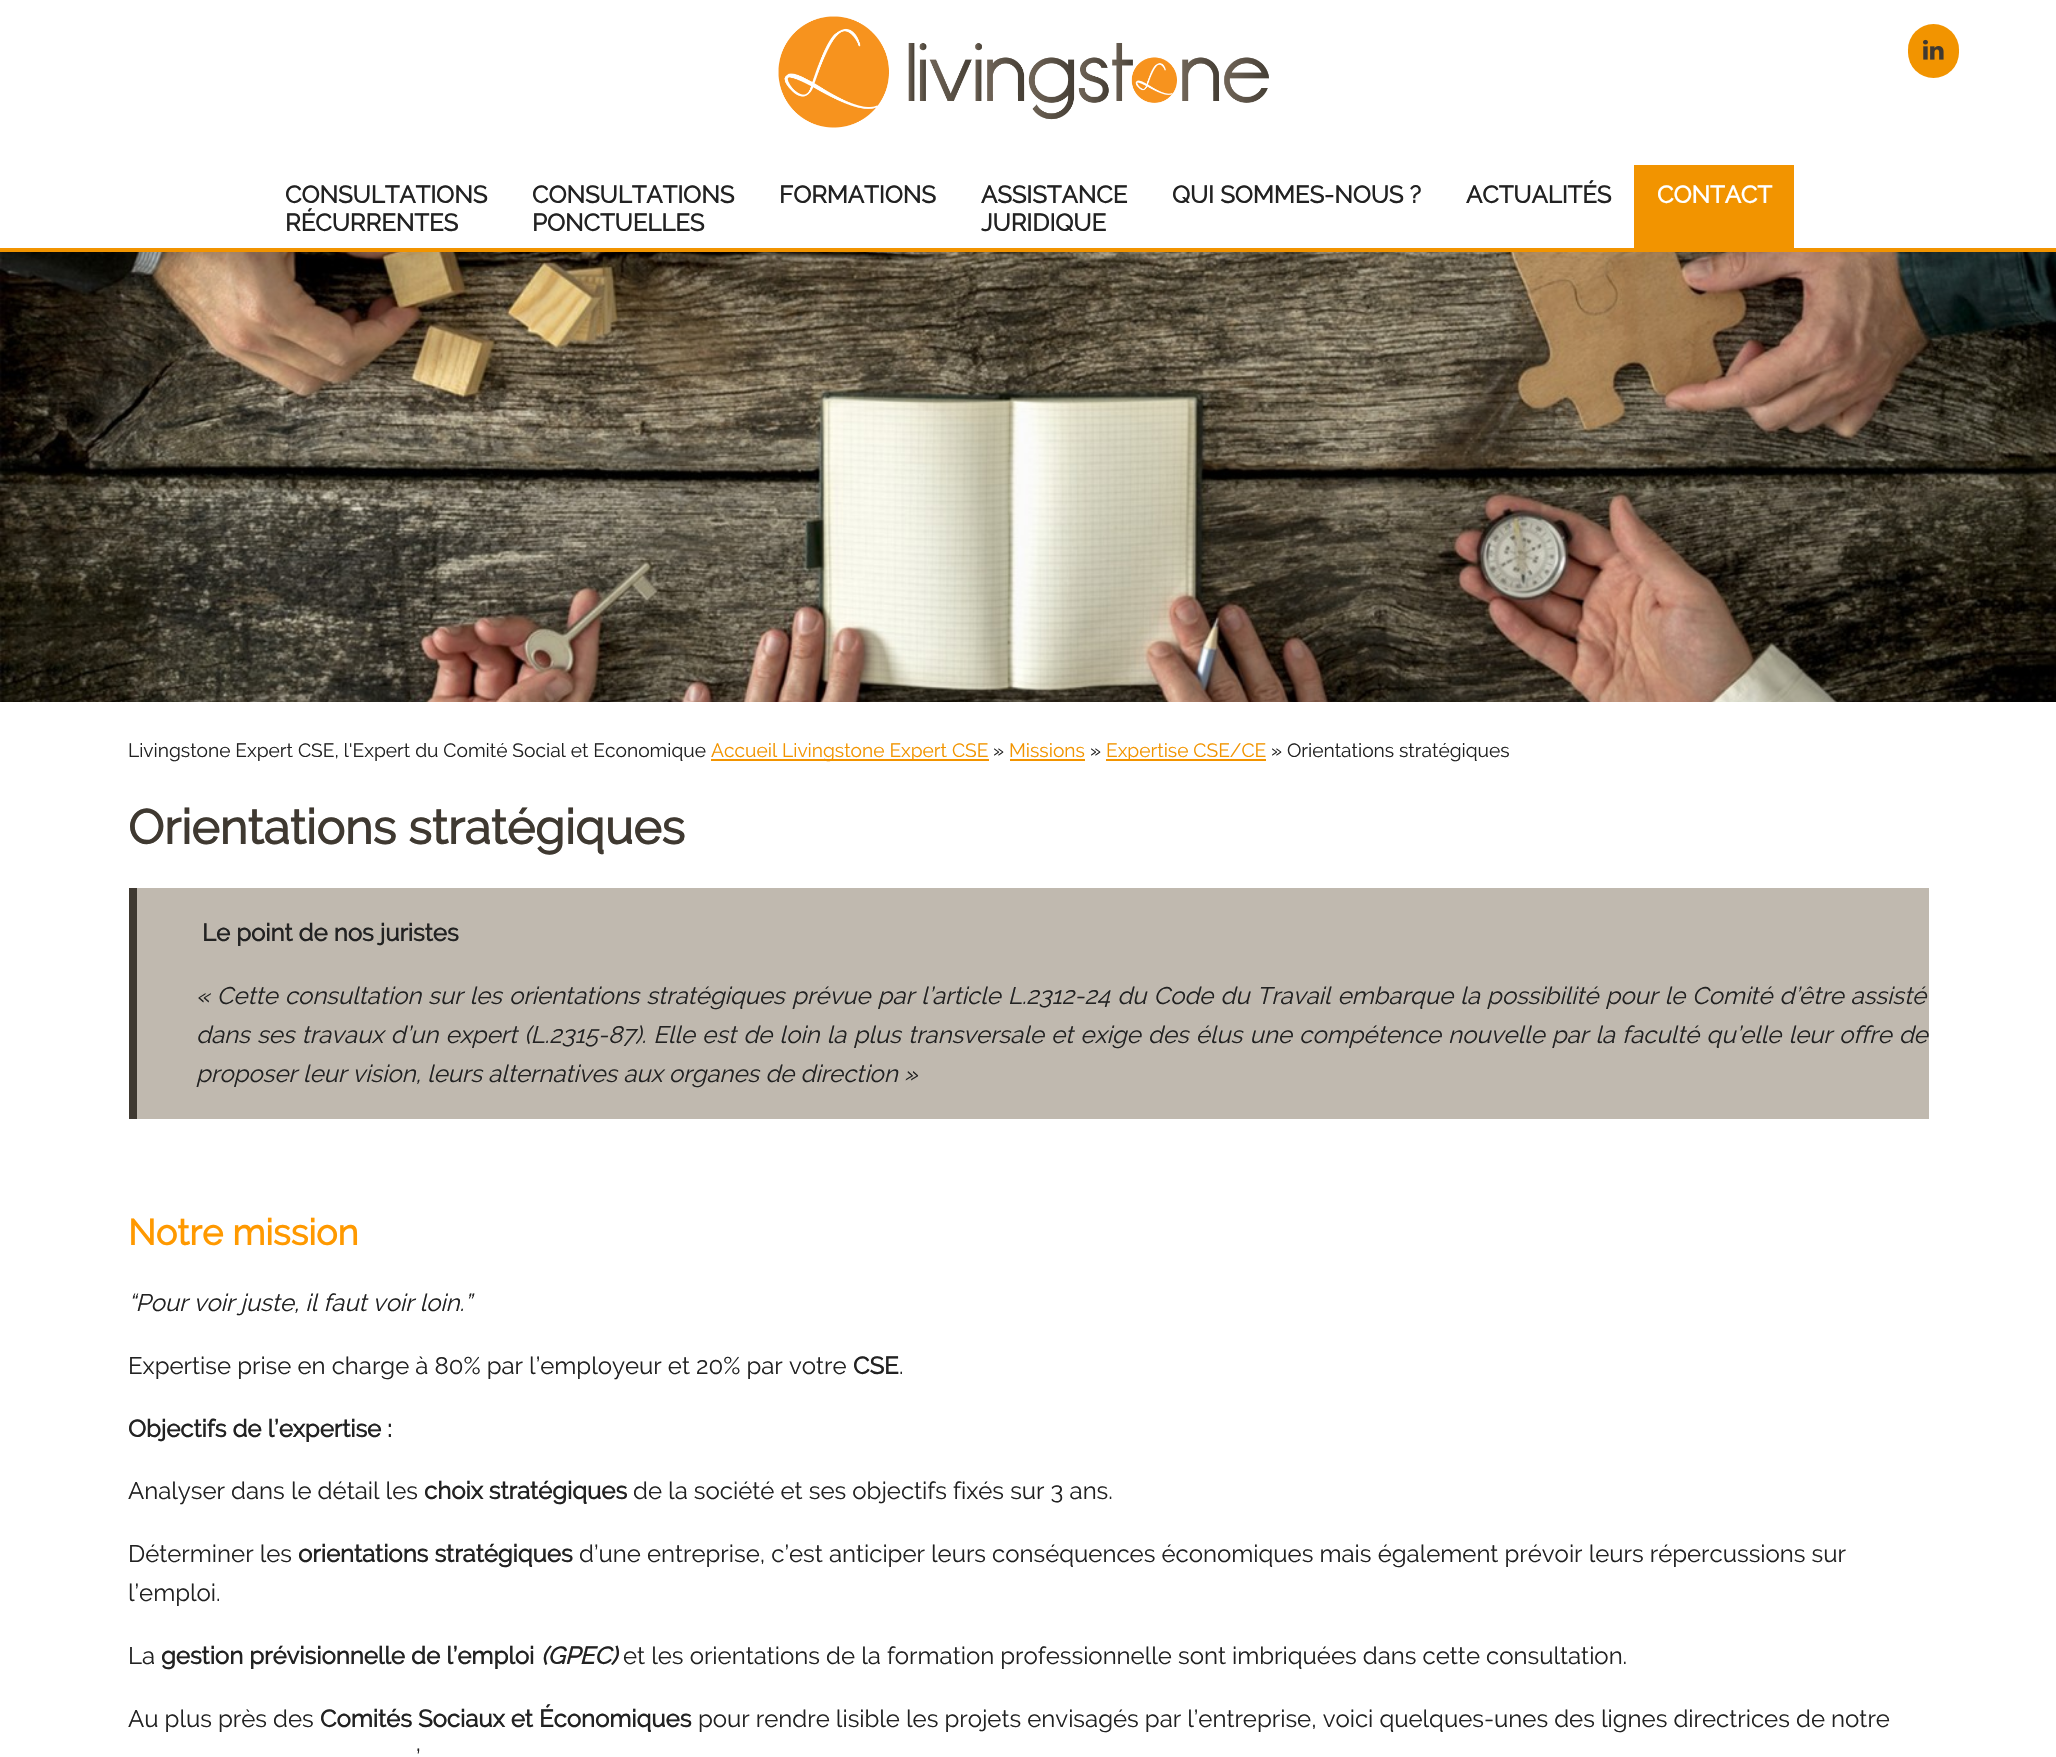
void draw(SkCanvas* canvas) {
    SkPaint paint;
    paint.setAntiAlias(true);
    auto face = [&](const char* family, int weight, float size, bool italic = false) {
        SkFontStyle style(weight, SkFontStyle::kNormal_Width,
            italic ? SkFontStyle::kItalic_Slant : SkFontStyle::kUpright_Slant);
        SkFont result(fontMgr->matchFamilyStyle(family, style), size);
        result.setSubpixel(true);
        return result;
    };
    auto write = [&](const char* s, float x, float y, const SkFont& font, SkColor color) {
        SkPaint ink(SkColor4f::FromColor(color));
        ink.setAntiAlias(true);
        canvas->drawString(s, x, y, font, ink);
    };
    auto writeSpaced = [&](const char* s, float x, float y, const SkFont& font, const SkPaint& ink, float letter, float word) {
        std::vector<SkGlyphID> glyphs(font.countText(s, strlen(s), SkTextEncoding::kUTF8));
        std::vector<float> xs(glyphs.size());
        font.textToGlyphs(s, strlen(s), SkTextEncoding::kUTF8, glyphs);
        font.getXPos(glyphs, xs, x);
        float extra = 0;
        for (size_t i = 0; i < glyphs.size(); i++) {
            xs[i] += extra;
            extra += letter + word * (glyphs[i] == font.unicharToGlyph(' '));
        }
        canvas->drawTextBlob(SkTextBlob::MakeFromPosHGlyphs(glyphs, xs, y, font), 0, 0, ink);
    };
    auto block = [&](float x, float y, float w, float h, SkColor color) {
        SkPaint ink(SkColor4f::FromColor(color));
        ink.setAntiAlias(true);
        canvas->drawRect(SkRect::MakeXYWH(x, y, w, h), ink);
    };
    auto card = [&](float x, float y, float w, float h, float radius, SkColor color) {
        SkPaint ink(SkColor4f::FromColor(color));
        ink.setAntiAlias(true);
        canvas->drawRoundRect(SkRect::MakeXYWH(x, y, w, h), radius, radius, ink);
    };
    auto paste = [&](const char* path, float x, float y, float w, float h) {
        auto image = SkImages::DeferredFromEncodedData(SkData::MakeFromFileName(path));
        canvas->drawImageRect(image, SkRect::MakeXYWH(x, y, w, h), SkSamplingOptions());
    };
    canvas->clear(SK_ColorWHITE);
    block(0, 248, 2056, 4, SkColorSetRGB(242, 148, 0));
    paste("pic1.png", 778, 16, 491, 112);
    card(1908, 24, 51, 54, 25.5f, SkColorSetRGB(242, 148, 0));
    paste("pic2.png", 1923, 39, 21, 21);
    auto kFont1 = face("Raleway", 700, 24);
    write("CONSULTATIONS", 285, 203, kFont1, SkColorSetRGB(34, 34, 34));
    write("RÉCURRENTES", 285, 231, kFont1, SkColorSetRGB(34, 34, 34));
    write("CONSULTATIONS", 532, 203, kFont1, SkColorSetRGB(34, 34, 34));
    write("PONCTUELLES", 532, 231, kFont1, SkColorSetRGB(34, 34, 34));
    write("FORMATIONS", 779, 203, kFont1, SkColorSetRGB(34, 34, 34));
    write("ASSISTANCE", 981, 203, kFont1, SkColorSetRGB(34, 34, 34));
    write("JURIDIQUE", 981, 231, kFont1, SkColorSetRGB(34, 34, 34));
    write("QUI SOMMES-NOUS ?", 1172, 203, kFont1, SkColorSetRGB(34, 34, 34));
    write("ACTUALITÉS", 1466, 203, kFont1, SkColorSetRGB(34, 34, 34));
    block(1634, 165, 160, 83, SkColorSetRGB(242, 148, 0));
    write("CONTACT", 1657, 203, kFont1, SK_ColorWHITE);
    paste("pic3.png", 0, 252, 2056, 450);
    auto kFont2 = face("Raleway", 400, 19.2f);
    write("Livingstone Expert CSE, l'Expert du Comité Social et Economique", 128, 757, kFont2, SkColorSetRGB(34, 34, 34));
    block(711, 759, 278, 2, SkColorSetRGB(242, 148, 0));
    write("Accueil Livingstone Expert CSE", 711, 757, kFont2, SkColorSetRGB(242, 148, 0));
    write("»", 993, 757, kFont2, SkColorSetRGB(34, 34, 34));
    write("Missions", 1009, 757, kFont2, SkColorSetRGB(242, 148, 0));
    block(1010, 759, 75, 2, SkColorSetRGB(242, 148, 0));
    write("»", 1090, 757, kFont2, SkColorSetRGB(34, 34, 34));
    block(1106, 759, 160, 2, SkColorSetRGB(242, 148, 0));
    write("Expertise CSE/CE", 1106, 757, kFont2, SkColorSetRGB(242, 148, 0));
    write("» Orientations stratégiques", 1271, 757, kFont2, SkColorSetRGB(34, 34, 34));
    auto kFont3 = face("Raleway", 700, 48);
    write("Orientations stratégiques", 128, 844, kFont3, SkColorSetRGB(63, 57, 49));
    block(137, 888, 1792, 231, SkColorSetRGB(192, 185, 175));
    block(129, 888, 8, 231, SkColorSetRGB(63, 57, 49));
    write("Le point de nos juristes", 202, 941, kFont1, SkColorSetRGB(34, 34, 34));
    auto kFont4 = face("Raleway", 400, 24, true);
    paint.setColor(SkColorSetRGB(34, 34, 34));
    writeSpaced("« Cette consultation", 196, 1004, kFont4, paint, 0, 1);
    writeSpaced("sur les orientations stratégiques", 428, 1004, kFont4, paint, 0, 1);
    writeSpaced("prévue par l’article L.2312-24 du Code du Travail embarque la possibilité pour le Comité d’être assisté", 792, 1004, kFont4, paint, 0, 1);
    writeSpaced("dans ses travaux d’un expert (L.2315-87). Elle est de loin la plus transversale et exige des élus une compétence nouvelle par la faculté qu’elle leur offre de", 196, 1043, kFont4, paint, 0, 1.1f);
    write("proposer leur vision, leurs alternatives aux organes de direction »", 196, 1082, kFont4, SkColorSetRGB(34, 34, 34));
    auto kFont5 = face("Raleway", 700, 36);
    write("Notre mission", 128, 1245, kFont5, SkColorSetRGB(255, 153, 0));
    write("“Pour voir juste, il faut voir loin.”", 128, 1311, kFont4, SkColorSetRGB(34, 34, 34));
    auto kFont6 = face("Raleway", 400, 24);
    write("Expertise prise en charge à 80% par l’employeur et 20% par votre", 128, 1374, kFont6, SkColorSetRGB(34, 34, 34));
    write("CSE", 853, 1374, kFont1, SkColorSetRGB(34, 34, 34));
    write(".", 899, 1374, kFont6, SkColorSetRGB(34, 34, 34));
    write("Objectifs de l’expertise :", 128, 1437, kFont1, SkColorSetRGB(34, 34, 34));
    write("Analyser dans le détail les", 128, 1499, kFont6, SkColorSetRGB(34, 34, 34));
    write("choix stratégiques", 424, 1499, kFont1, SkColorSetRGB(34, 34, 34));
    write("de la société et ses objectifs fixés sur 3 ans.", 633, 1499, kFont6, SkColorSetRGB(34, 34, 34));
    write("Déterminer les", 128, 1562, kFont6, SkColorSetRGB(34, 34, 34));
    write("orientations stratégiques", 298, 1562, kFont1, SkColorSetRGB(34, 34, 34));
    write("d’une entreprise, c’est anticiper leurs conséquences économiques mais également prévoir leurs répercussions sur", 579, 1562, kFont6, SkColorSetRGB(34, 34, 34));
    write("l’emploi.", 128, 1601, kFont6, SkColorSetRGB(34, 34, 34));
    write("La", 128, 1664, kFont6, SkColorSetRGB(34, 34, 34));
    write("gestion prévisionnelle de l’emploi", 161, 1664, kFont1, SkColorSetRGB(34, 34, 34));
    auto kFont7 = face("Raleway", 700, 24, true);
    write("(GPEC)", 541, 1664, kFont7, SkColorSetRGB(34, 34, 34));
    write("et les orientations de la formation professionnelle sont imbriquées dans cette consultation.", 623, 1664, kFont6, SkColorSetRGB(34, 34, 34));
    write("Au plus près des", 128, 1727, kFont6, SkColorSetRGB(34, 34, 34));
    write("Comités Sociaux et Économiques", 320, 1727, kFont1, SkColorSetRGB(34, 34, 34));
    write("pour rendre lisible les projets envisagés par l’entreprise, voici quelques-unes des lignes directrices de notre", 698, 1727, kFont6, SkColorSetRGB(34, 34, 34));
    write("’", 416, 1766, kFont6, SkColorSetRGB(34, 34, 34));
}
